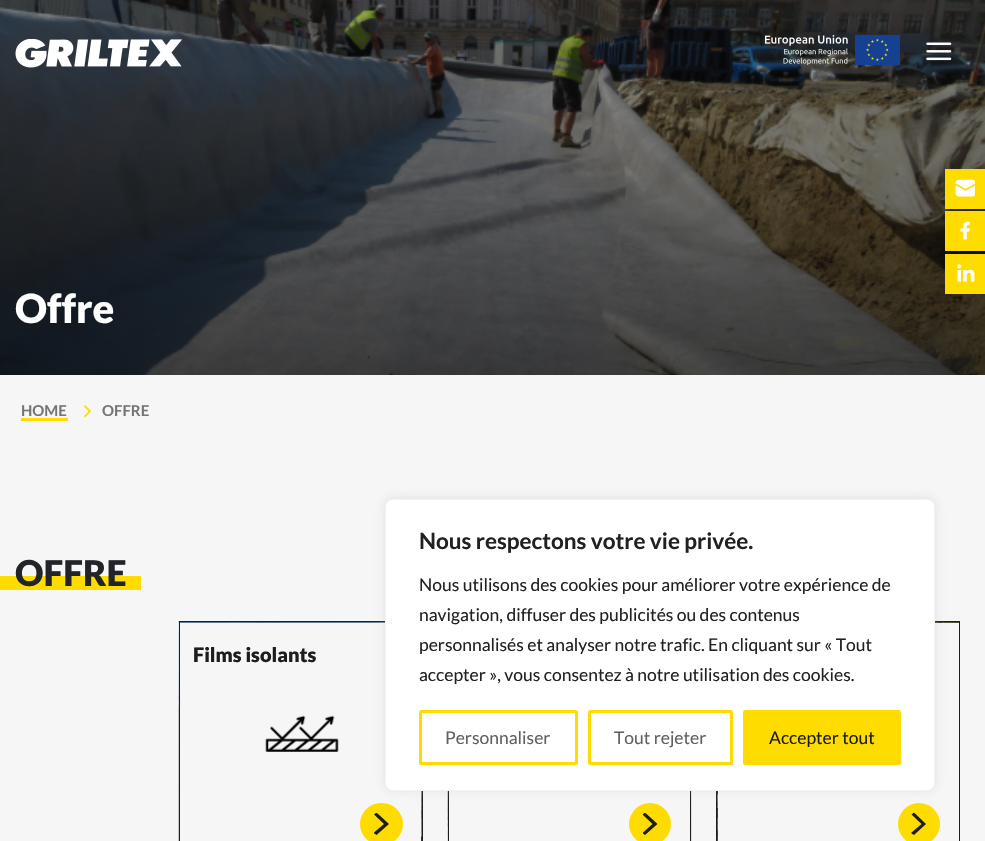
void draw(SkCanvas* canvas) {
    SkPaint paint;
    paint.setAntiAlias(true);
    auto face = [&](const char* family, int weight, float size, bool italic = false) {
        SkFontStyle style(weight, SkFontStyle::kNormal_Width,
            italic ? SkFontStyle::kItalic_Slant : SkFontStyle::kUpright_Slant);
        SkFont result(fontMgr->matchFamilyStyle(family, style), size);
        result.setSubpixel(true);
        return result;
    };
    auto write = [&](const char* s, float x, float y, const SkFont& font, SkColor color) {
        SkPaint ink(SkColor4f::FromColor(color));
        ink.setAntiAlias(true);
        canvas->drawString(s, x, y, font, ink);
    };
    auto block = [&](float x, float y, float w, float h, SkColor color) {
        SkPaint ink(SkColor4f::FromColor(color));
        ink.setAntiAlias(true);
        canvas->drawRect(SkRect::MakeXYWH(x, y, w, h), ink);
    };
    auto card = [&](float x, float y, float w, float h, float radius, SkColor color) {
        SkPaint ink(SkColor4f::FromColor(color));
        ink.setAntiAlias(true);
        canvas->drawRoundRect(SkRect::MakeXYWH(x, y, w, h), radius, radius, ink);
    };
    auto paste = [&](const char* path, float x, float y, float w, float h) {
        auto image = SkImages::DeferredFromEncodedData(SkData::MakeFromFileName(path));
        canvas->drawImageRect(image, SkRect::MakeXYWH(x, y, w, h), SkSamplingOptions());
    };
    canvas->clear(SkColorSetRGB(246, 246, 246));
    paste("pic8.png", 0, 0, 985, 375);
    paint.setColor(SkColorSetARGB(38, 0, 0, 0));
    paint.setMaskFilter(SkMaskFilter::MakeBlur(kNormal_SkBlurStyle, 2.5f));
    canvas->drawRect(SkRect::MakeXYWH(945, 174, 40, 40), paint);
    paint.setMaskFilter(nullptr);
    block(945, 169, 40, 40, SkColorSetRGB(255, 220, 0));
    paste("pic1.png", 955, 179, 20, 18);
    block(945, 211, 40, 40, SkColorSetRGB(255, 220, 0));
    paste("pic2.png", 960, 221, 10, 19);
    block(945, 254, 40, 40, SkColorSetRGB(255, 220, 0));
    paste("pic3.png", 957, 264, 18, 18);
    paste("pic4.png", 15, 39, 167, 29);
    paste("pic5.png", 765, 35, 83, 30);
    paste("pic6.png", 855, 35, 45, 30);
    paste("pic7.png", 926, 42, 26, 19);
    auto kFont1 = face("Lato", 900, 40);
    write("Offre", 15, 323, kFont1, SK_ColorWHITE);
    auto kFont2 = face("Lato", 700, 15);
    write("HOME", 21, 416, kFont2, SkColorSetRGB(117, 117, 117));
    block(21, 418, 47, 3, SkColorSetRGB(255, 220, 0));
    paste("pic9.png", 84, 405, 7, 13);
    write("OFFRE", 102, 416, kFont2, SkColorSetRGB(117, 117, 117));
    block(0, 576, 141, 14, SkColorSetRGB(255, 220, 0));
    auto kFont3 = face("Lato", 900, 35.5f);
    write("OFFRE", 15, 586, kFont3, SkColorSetRGB(33, 37, 41));
    paste("pic10.png", 178, 621, 244, 220);
    paint.setStyle(SkPaint::kStroke_Style);
    paint.setStrokeWidth(1);
    paint.setColor(SkColorSetRGB(29, 29, 27));
    canvas->drawRect(SkRect::MakeXYWH(179.5f, 621.5f, 243, 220), paint);
    block(180, 623, 241, 218, SkColorSetRGB(246, 246, 246));
    auto kFont4 = face("Lato", 900, 20);
    write("Films isolants", 193, 662, kFont4, SkColorSetRGB(29, 29, 27));
    paste("pic11.png", 265, 715, 74, 37);
    card(360, 803, 43, 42, 21, SkColorSetRGB(255, 220, 0));
    canvas->save();
    canvas->clipRect(SkRect::MakeXYWH(374, 813, 15, 22));
    paint.setStyle(SkPaint::kFill_Style);
    canvas->drawPath(SkPathBuilder().moveTo(373.5f, 833).lineTo(376.5f, 835).lineTo(389, 824).lineTo(376.5f, 812.5f).lineTo(374, 814.5f).lineTo(384, 824).close().detach(), paint);
    canvas->restore();
    paste("pic12.png", 447, 791, 245, 50);
    paint.setStyle(SkPaint::kStroke_Style);
    canvas->drawRect(SkRect::MakeXYWH(448.5f, 621.5f, 242, 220), paint);
    block(449, 791, 241, 50, SkColorSetRGB(246, 246, 246));
    paint.setStyle(SkPaint::kFill_Style);
    paint.setColor(SkColorSetRGB(255, 220, 0));
    canvas->drawCircle(650, 824, 21, paint);
    canvas->save();
    canvas->clipRect(SkRect::MakeXYWH(643, 813, 15, 22));
    paint.setColor(SkColorSetRGB(29, 29, 27));
    canvas->drawPath(SkPathBuilder().moveTo(642.5f, 833).lineTo(645, 835).lineTo(657.5f, 824).lineTo(645, 812.5f).lineTo(642.5f, 814.5f).lineTo(652.5f, 824).close().detach(), paint);
    canvas->restore();
    paste("pic13.png", 717, 622, 242, 219);
    paint.setStyle(SkPaint::kStroke_Style);
    canvas->drawRect(SkRect::MakeXYWH(716.5f, 621.5f, 243, 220), paint);
    block(718, 623, 241, 218, SkColorSetRGB(246, 246, 246));
    paint.setStyle(SkPaint::kFill_Style);
    paint.setColor(SkColorSetRGB(255, 220, 0));
    canvas->drawCircle(919, 824, 21, paint);
    paint.setColor(SkColorSetRGB(29, 29, 27));
    canvas->drawPath(SkPathBuilder().moveTo(911, 833).lineTo(914, 835).lineTo(926, 824).lineTo(914, 812.5f).lineTo(911.5f, 814.5f).lineTo(921.5f, 824).close().detach(), paint);
    paint.setColor(SkColorSetARGB(77, 172, 171, 171));
    paint.setMaskFilter(SkMaskFilter::MakeBlur(kNormal_SkBlurStyle, 6));
    canvas->drawRoundRect(SkRect::MakeXYWH(385, 498, 550, 292), 8, 8, paint);
    paint.setMaskFilter(nullptr);
    paint.setColor(SK_ColorWHITE);
    canvas->drawRoundRect(SkRect::MakeXYWH(385.5f, 499.5f, 549, 291), 7.5f, 7.5f, paint);
    paint.setStyle(SkPaint::kStroke_Style);
    paint.setColor(SkColorSetRGB(244, 244, 244));
    canvas->drawRoundRect(SkRect::MakeXYWH(385.5f, 499.5f, 549, 291), 7.5f, 7.5f, paint);
    auto kFont5 = face("Lato", 700, 22.5f);
    write("Nous respectons votre vie privée.", 419, 549, kFont5, SkColorSetRGB(33, 33, 33));
    auto kFont6 = face("Lato", 400, 17.5f);
    write("Nous utilisons des cookies pour améliorer votre expérience de", 419, 591, kFont6, SkColorSetRGB(33, 33, 33));
    write("navigation, diffuser des publicités ou des contenus", 419, 621, kFont6, SkColorSetRGB(33, 33, 33));
    write("personnalisés et analyser notre trafic. En cliquant sur « Tout", 419, 651, kFont6, SkColorSetRGB(33, 33, 33));
    write("accepter », vous consentez à notre utilisation des cookies.", 419, 681, kFont6, SkColorSetRGB(33, 33, 33));
    paint.setStrokeWidth(3);
    paint.setColor(SkColorSetRGB(255, 220, 0));
    canvas->drawRoundRect(SkRect::MakeXYWH(420.5f, 711.5f, 156, 52), 1, 1, paint);
    write("Personnaliser", 445, 744, kFont6, SkColorSetRGB(96, 96, 93));
    canvas->drawRoundRect(SkRect::MakeXYWH(589.5f, 711.5f, 142, 52), 1, 1, paint);
    write("Tout rejeter", 614, 744, kFont6, SkColorSetRGB(96, 96, 93));
    paint.setStyle(SkPaint::kFill_Style);
    canvas->drawRoundRect(SkRect::MakeXYWH(744.5f, 711.5f, 155, 52), 1, 1, paint);
    paint.setStyle(SkPaint::kStroke_Style);
    canvas->drawRoundRect(SkRect::MakeXYWH(744.5f, 711.5f, 155, 52), 1, 1, paint);
    write("Accepter tout", 769, 744, kFont6, SkColorSetRGB(29, 29, 27));
}
